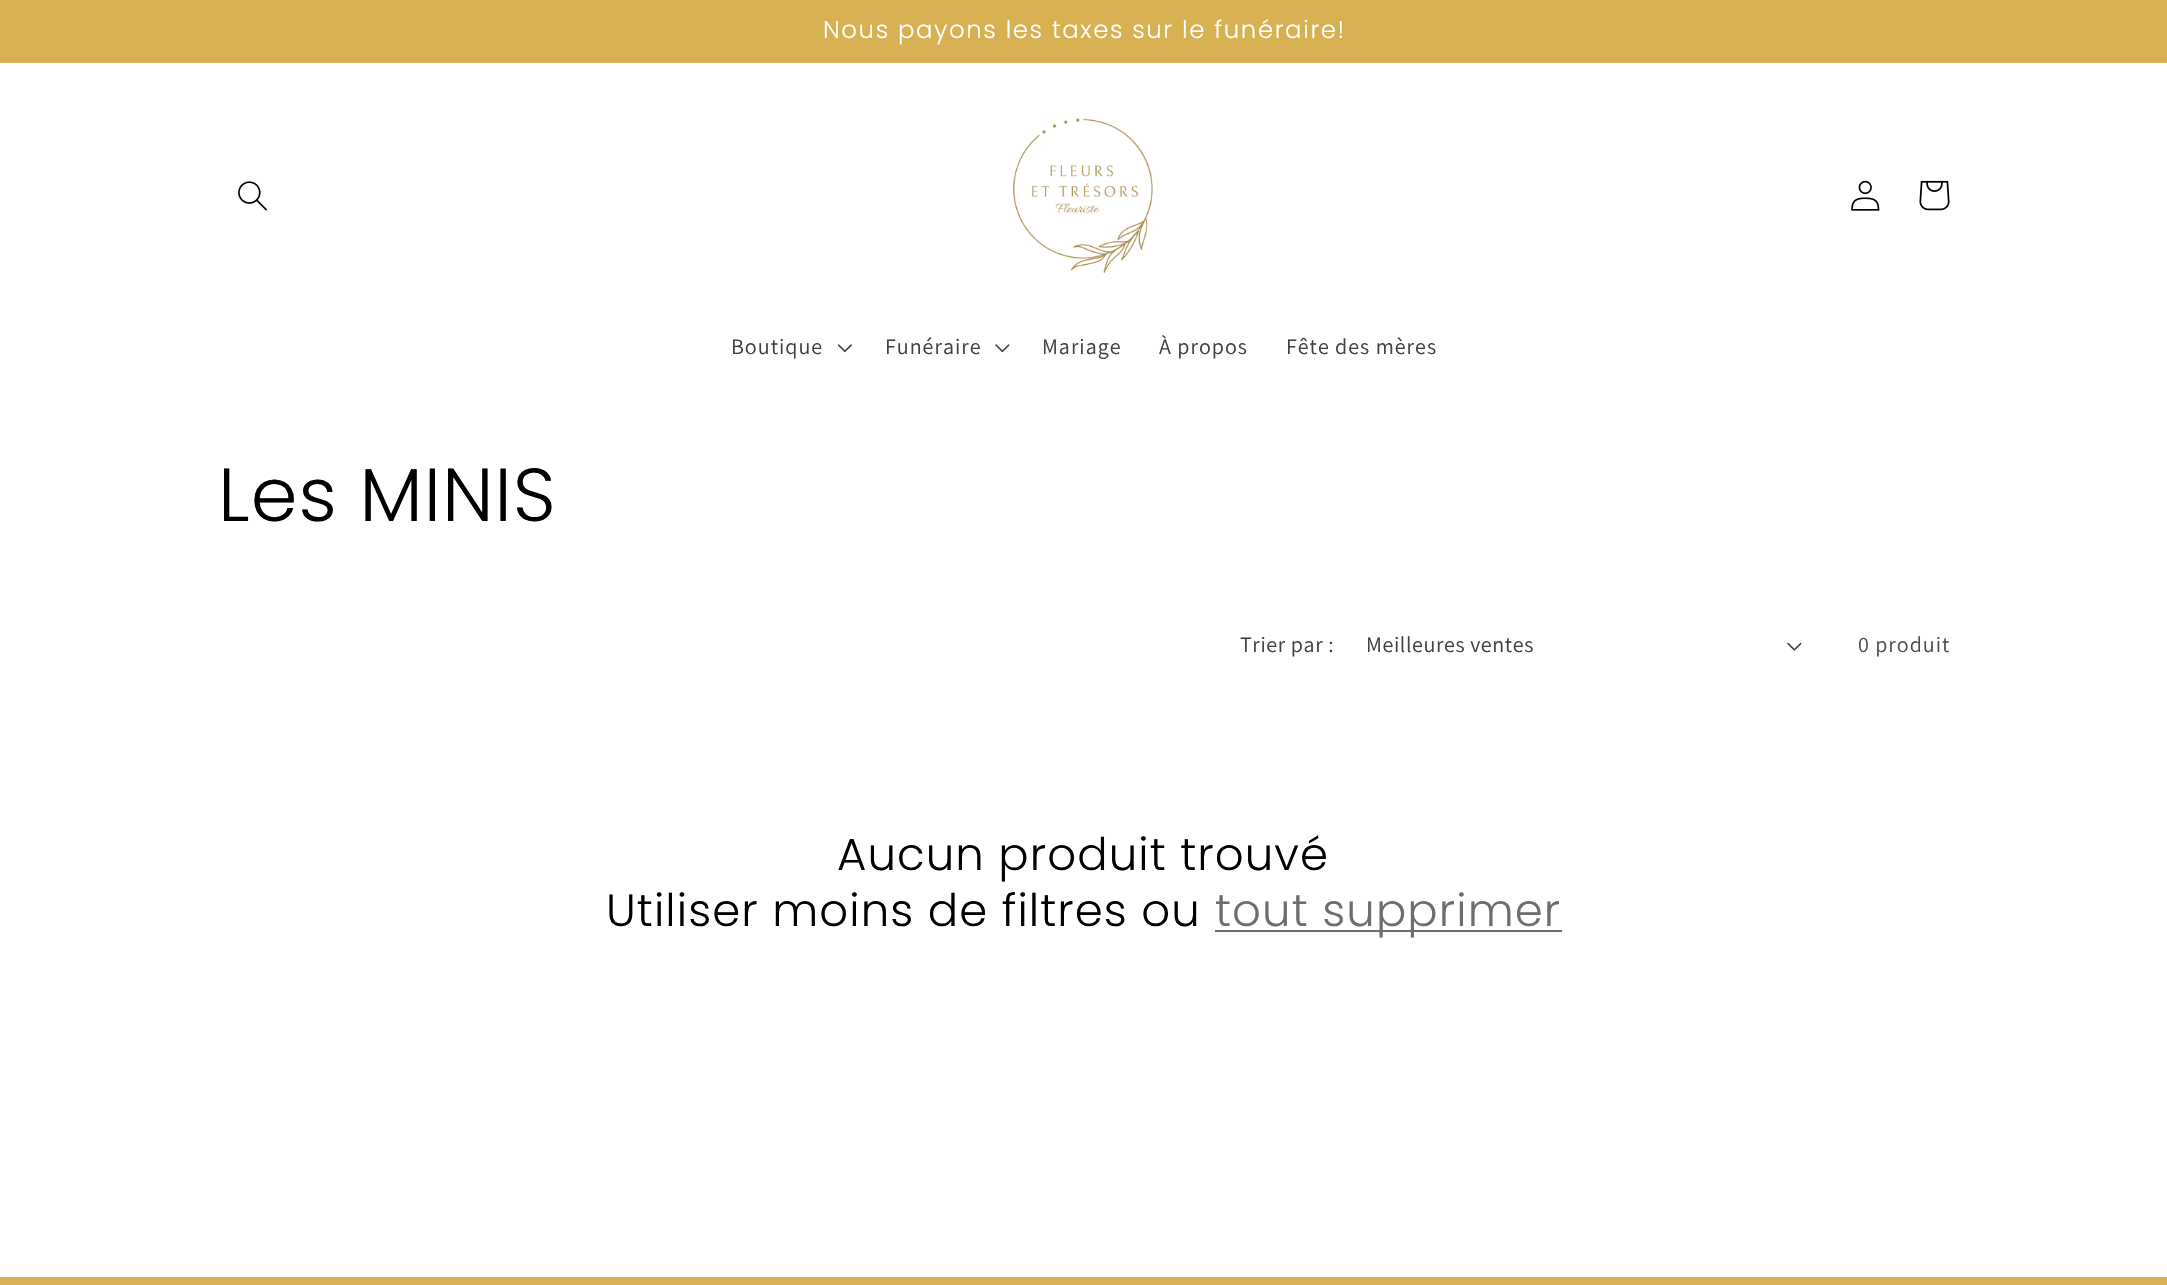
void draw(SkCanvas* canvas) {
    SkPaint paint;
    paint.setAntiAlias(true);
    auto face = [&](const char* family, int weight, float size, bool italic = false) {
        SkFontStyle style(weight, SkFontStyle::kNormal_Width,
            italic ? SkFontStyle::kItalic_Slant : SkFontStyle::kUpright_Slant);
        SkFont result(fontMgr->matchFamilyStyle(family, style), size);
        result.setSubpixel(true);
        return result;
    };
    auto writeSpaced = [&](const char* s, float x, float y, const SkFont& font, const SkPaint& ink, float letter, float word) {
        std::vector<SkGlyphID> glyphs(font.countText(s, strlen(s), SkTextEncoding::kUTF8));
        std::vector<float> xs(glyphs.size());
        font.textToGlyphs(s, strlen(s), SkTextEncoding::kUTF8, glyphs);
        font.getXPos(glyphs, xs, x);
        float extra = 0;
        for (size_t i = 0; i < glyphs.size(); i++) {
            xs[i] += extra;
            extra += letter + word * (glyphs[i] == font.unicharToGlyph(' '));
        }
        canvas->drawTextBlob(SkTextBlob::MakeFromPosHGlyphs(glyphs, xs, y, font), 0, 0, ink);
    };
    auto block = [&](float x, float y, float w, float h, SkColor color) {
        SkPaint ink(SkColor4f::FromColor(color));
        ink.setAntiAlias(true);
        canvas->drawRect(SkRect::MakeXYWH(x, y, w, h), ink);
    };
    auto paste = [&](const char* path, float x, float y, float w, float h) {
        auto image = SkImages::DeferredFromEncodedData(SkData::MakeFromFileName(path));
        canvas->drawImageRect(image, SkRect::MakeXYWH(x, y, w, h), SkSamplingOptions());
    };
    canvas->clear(SK_ColorWHITE);
    block(0, 0, 2167, 62, SkColorSetRGB(215, 177, 81));
    block(0, 62, 2167, 1, SkColorSetRGB(218, 183, 95));
    auto kFont1 = face("Poppins", 300, 24.4f);
    paint.setColor(SK_ColorWHITE);
    writeSpaced("Nous payons les taxes sur le funéraire!", 823, 38, kFont1, paint, 1.6f, 0);
    paste("pic1.png", 238, 181, 29, 30);
    paste("pic2.png", 1013, 117, 140, 157);
    paste("pic3.png", 1851, 180, 29, 31);
    paste("pic4.png", 1919, 180, 31, 31);
    auto kFont2 = face("Assistant", 400, 22);
    paint.setColor(SkColorSetRGB(64, 64, 64));
    writeSpaced("Boutique", 731, 354, kFont2, paint, 1, 0);
    paste("pic5.png", 837, 344, 15, 9);
    writeSpaced("Funéraire", 885, 354, kFont2, paint, 1, 0);
    paste("pic6.png", 995, 344, 15, 9);
    writeSpaced("Mariage", 1042, 354, kFont2, paint, 1, 0);
    writeSpaced("À propos", 1159, 354, kFont2, paint, 1, 0);
    writeSpaced("Fête des mères", 1286, 354, kFont2, paint, 1, 0);
    auto kFont3 = face("Poppins", 300, 75);
    paint.setColor(SK_ColorBLACK);
    writeSpaced("Les MINIS", 218, 521, kFont3, paint, 1.1f, 0);
    paint.setColor(SkColorSetRGB(64, 64, 64));
    writeSpaced("Trier par :", 1240, 652, kFont2, paint, 0.6f, 0);
    writeSpaced("Meilleures ventes", 1366, 652, kFont2, paint, 0.6f, 0);
    paste("pic7.png", 1787, 642, 15, 9);
    paint.setColor(SkColorSetRGB(77, 77, 77));
    writeSpaced("0 produit", 1858, 652, kFont2, paint, 1, 0);
    auto kFont4 = face("Poppins", 300, 45);
    paint.setColor(SK_ColorBLACK);
    writeSpaced("Aucun produit trouvé", 837, 870, kFont4, paint, 1.1f, 0);
    writeSpaced("Utiliser moins de filtres ou", 606, 926, kFont4, paint, 1.1f, 0);
    block(1215, 930, 347, 2, SkColorSetRGB(106, 111, 111));
    paint.setColor(SkColorSetRGB(106, 111, 110));
    writeSpaced("tout supprimer", 1215, 926, kFont4, paint, 1.1f, 0);
    block(0, 1277, 2167, 8, SkColorSetRGB(215, 177, 81));
}
